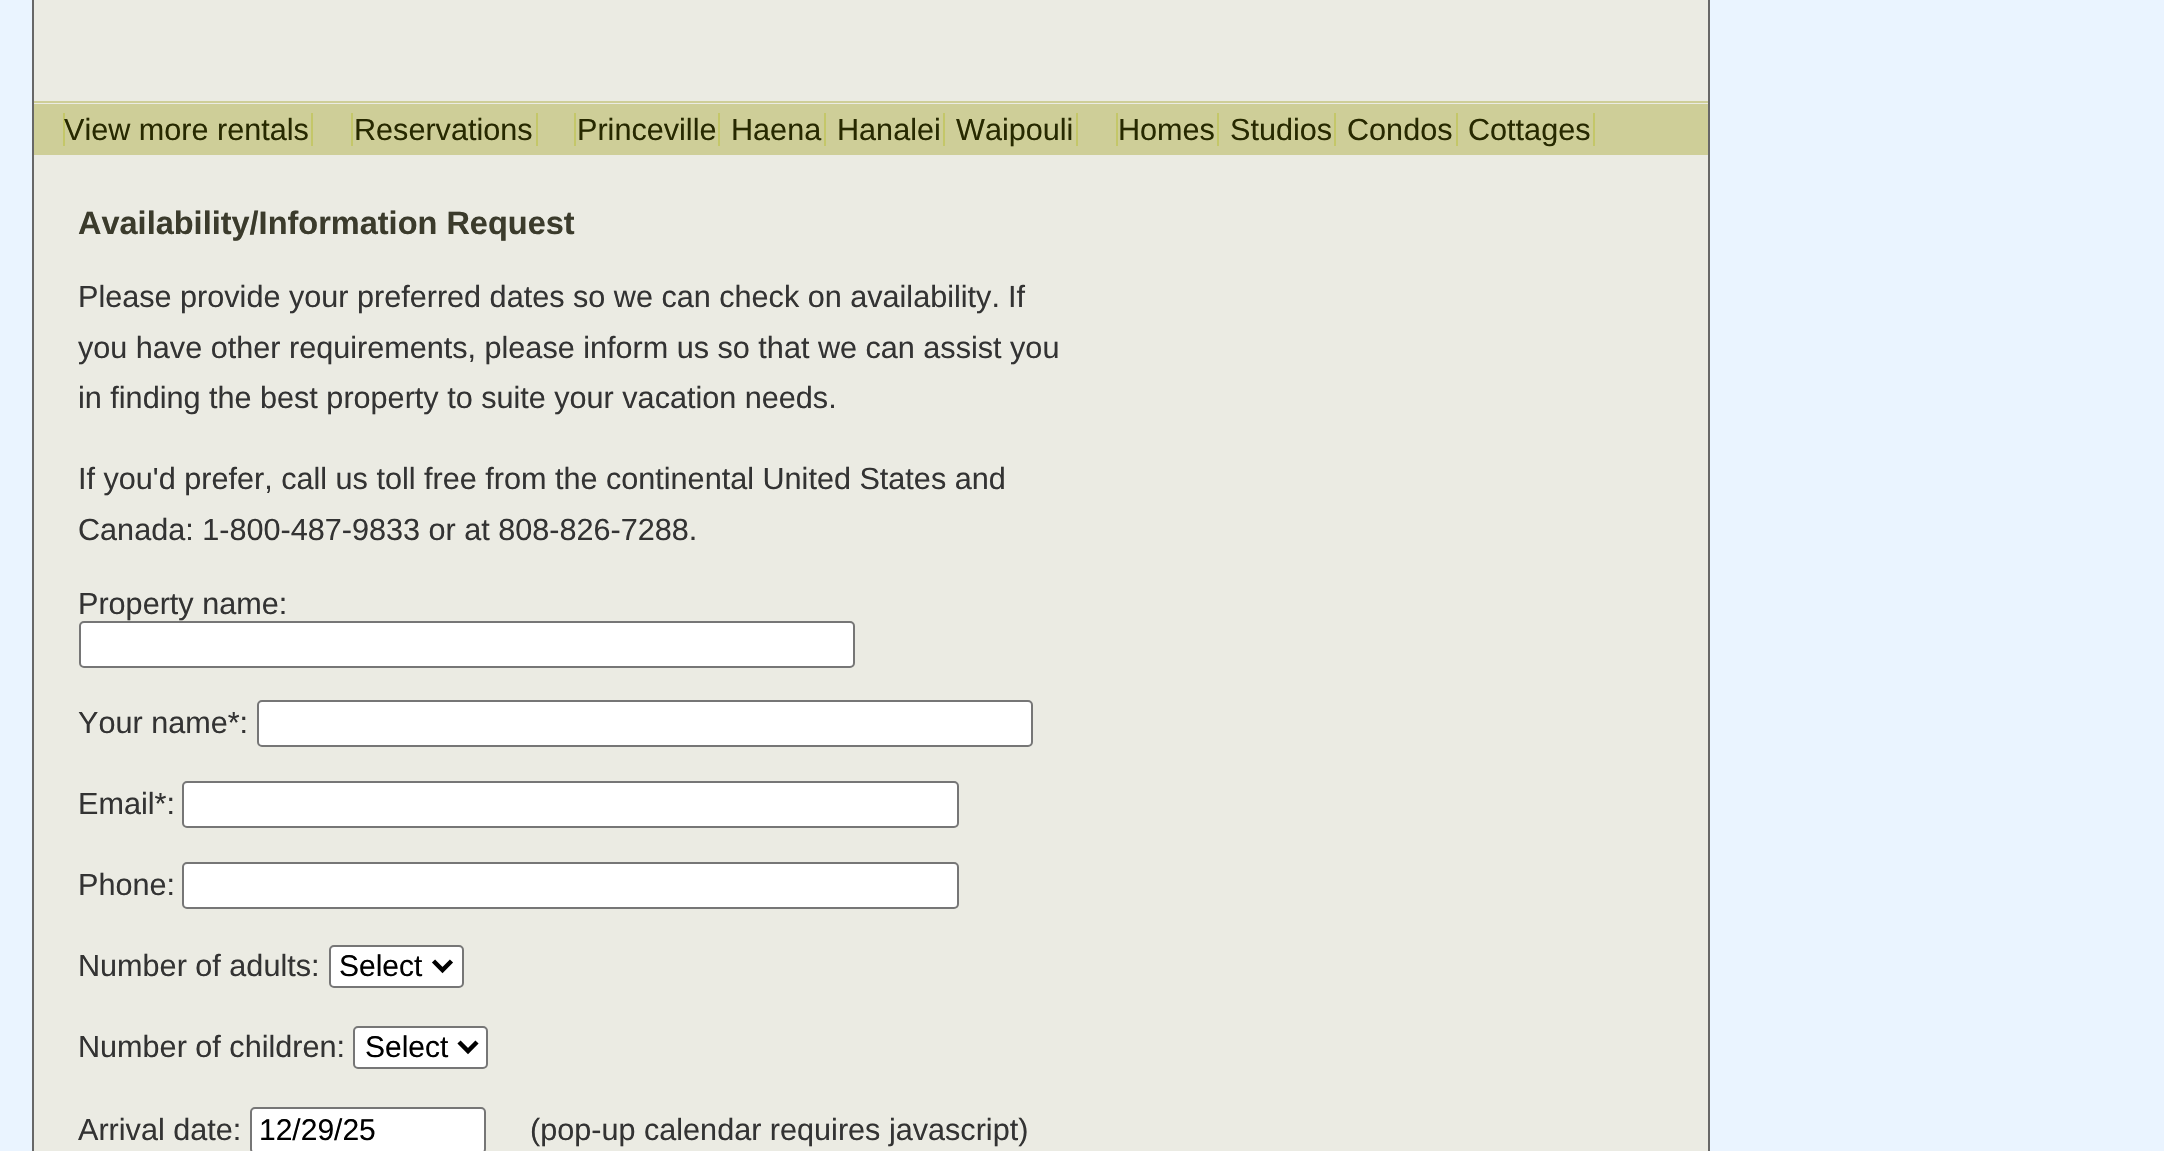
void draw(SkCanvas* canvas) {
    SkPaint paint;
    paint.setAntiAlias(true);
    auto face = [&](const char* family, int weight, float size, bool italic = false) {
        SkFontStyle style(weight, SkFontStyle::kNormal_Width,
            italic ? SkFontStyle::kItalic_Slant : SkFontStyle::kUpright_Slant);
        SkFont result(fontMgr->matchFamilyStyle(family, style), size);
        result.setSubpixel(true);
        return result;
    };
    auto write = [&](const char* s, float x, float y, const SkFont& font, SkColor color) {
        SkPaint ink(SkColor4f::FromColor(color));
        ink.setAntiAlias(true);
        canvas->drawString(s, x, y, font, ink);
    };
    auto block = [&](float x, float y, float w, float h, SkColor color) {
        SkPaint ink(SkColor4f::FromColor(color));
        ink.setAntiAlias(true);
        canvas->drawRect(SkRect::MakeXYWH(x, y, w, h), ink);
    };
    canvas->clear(SkColorSetRGB(234, 244, 255));
    paint.setColor(SkColorSetRGB(235, 235, 227));
    canvas->drawRect(SkRect::MakeXYWH(33, -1, 1676, 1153), paint);
    paint.setStyle(SkPaint::kStroke_Style);
    paint.setStrokeWidth(2);
    paint.setColor(SkColorSetRGB(103, 103, 103));
    canvas->drawRect(SkRect::MakeXYWH(33, -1, 1676, 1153), paint);
    block(34, 101, 1674, 2, SkColorSetRGB(206, 206, 152));
    block(34, 104, 1674, 51, SkColorSetRGB(206, 206, 152));
    block(63, 113, 2, 33, SkColorSetRGB(196, 199, 105));
    auto kFont1 = face("Liberation Sans", 400, 30.6f);
    write("View more rentals", 64, 140, kFont1, SkColorSetRGB(39, 41, 0));
    block(311, 113, 2, 33, SkColorSetRGB(196, 199, 105));
    write("Reservations", 354, 140, kFont1, SkColorSetRGB(39, 41, 0));
    block(351, 113, 2, 33, SkColorSetRGB(196, 199, 105));
    block(536, 113, 2, 33, SkColorSetRGB(196, 199, 105));
    write("Princeville", 577, 140, kFont1, SkColorSetRGB(39, 41, 0));
    block(574, 113, 2, 33, SkColorSetRGB(196, 199, 105));
    block(718, 113, 2, 33, SkColorSetRGB(196, 199, 105));
    write("Haena", 731, 140, kFont1, SkColorSetRGB(39, 41, 0));
    block(824, 113, 2, 33, SkColorSetRGB(196, 199, 105));
    write("Hanalei", 837, 140, kFont1, SkColorSetRGB(39, 41, 0));
    block(943, 113, 2, 33, SkColorSetRGB(196, 199, 105));
    write("Waipouli", 956, 140, kFont1, SkColorSetRGB(39, 41, 0));
    block(1076, 113, 2, 33, SkColorSetRGB(196, 199, 105));
    write("Homes", 1118, 140, kFont1, SkColorSetRGB(39, 41, 0));
    block(1116, 113, 2, 33, SkColorSetRGB(196, 199, 105));
    block(1217, 113, 2, 33, SkColorSetRGB(196, 199, 105));
    write("Studios", 1230, 140, kFont1, SkColorSetRGB(39, 41, 0));
    block(1334, 113, 2, 33, SkColorSetRGB(196, 199, 105));
    write("Condos", 1347, 140, kFont1, SkColorSetRGB(39, 41, 0));
    block(1456, 113, 2, 33, SkColorSetRGB(196, 199, 105));
    write("Cottages", 1468, 140, kFont1, SkColorSetRGB(39, 41, 0));
    block(1593, 113, 2, 33, SkColorSetRGB(196, 199, 105));
    auto kFont2 = face("Liberation Sans", 700, 32.5f);
    write("Availability/Information Request", 78, 234, kFont2, SkColorSetRGB(59, 59, 44));
    write("Please provide your preferred dates so we can check on availability.", 78, 307, kFont1, SkColorSetRGB(51, 51, 51));
    write("If", 1008, 307, kFont1, SkColorSetRGB(51, 51, 51));
    write("you have other requirements, please inform us so that we can assist you", 78, 358, kFont1, SkColorSetRGB(51, 51, 51));
    write("in finding the best property to suite your vacation needs.", 78, 408, kFont1, SkColorSetRGB(51, 51, 51));
    write("If you'd prefer, call us toll free from the continental United States and", 78, 489, kFont1, SkColorSetRGB(51, 51, 51));
    write("Canada: 1-800-487-9833 or at 808-826-7288.", 78, 540, kFont1, SkColorSetRGB(51, 51, 51));
    write("Property name:", 78, 614, kFont1, SkColorSetRGB(51, 51, 51));
    paint.setStyle(SkPaint::kFill_Style);
    paint.setColor(SK_ColorWHITE);
    canvas->drawRoundRect(SkRect::MakeXYWH(80, 622, 774, 45), 4, 4, paint);
    paint.setStyle(SkPaint::kStroke_Style);
    paint.setColor(SkColorSetRGB(118, 118, 118));
    canvas->drawRoundRect(SkRect::MakeXYWH(80, 622, 774, 45), 4, 4, paint);
    write("Your name*:", 78, 733, kFont1, SkColorSetRGB(51, 51, 51));
    paint.setStyle(SkPaint::kFill_Style);
    paint.setColor(SK_ColorWHITE);
    canvas->drawRoundRect(SkRect::MakeXYWH(258, 701, 774, 45), 4, 4, paint);
    paint.setStyle(SkPaint::kStroke_Style);
    paint.setColor(SkColorSetRGB(118, 118, 118));
    canvas->drawRoundRect(SkRect::MakeXYWH(258, 701, 774, 45), 4, 4, paint);
    write("Email*:", 78, 814, kFont1, SkColorSetRGB(51, 51, 51));
    paint.setStyle(SkPaint::kFill_Style);
    paint.setColor(SK_ColorWHITE);
    canvas->drawRoundRect(SkRect::MakeXYWH(183, 782, 775, 45), 4, 4, paint);
    paint.setStyle(SkPaint::kStroke_Style);
    paint.setColor(SkColorSetRGB(118, 118, 118));
    canvas->drawRoundRect(SkRect::MakeXYWH(183, 782, 775, 45), 4, 4, paint);
    write("Phone:", 78, 895, kFont1, SkColorSetRGB(51, 51, 51));
    paint.setStyle(SkPaint::kFill_Style);
    paint.setColor(SK_ColorWHITE);
    canvas->drawRoundRect(SkRect::MakeXYWH(183, 863, 775, 45), 4, 4, paint);
    paint.setStyle(SkPaint::kStroke_Style);
    paint.setColor(SkColorSetRGB(118, 118, 118));
    canvas->drawRoundRect(SkRect::MakeXYWH(183, 863, 775, 45), 4, 4, paint);
    write("Number of adults:", 78, 976, kFont1, SkColorSetRGB(51, 51, 51));
    paint.setStyle(SkPaint::kFill_Style);
    paint.setColor(SK_ColorWHITE);
    canvas->drawRoundRect(SkRect::MakeXYWH(330, 946, 133, 41), 4, 4, paint);
    paint.setStyle(SkPaint::kStroke_Style);
    paint.setColor(SkColorSetRGB(118, 118, 118));
    canvas->drawRoundRect(SkRect::MakeXYWH(330, 946, 133, 41), 4, 4, paint);
    paint.setStrokeWidth(4.5f);
    paint.setColor(SK_ColorBLACK);
    canvas->drawPath(SkPathBuilder().moveTo(433.5f, 961).lineTo(442.5f, 970).lineTo(451.5f, 961).detach(), paint);
    auto kFont3 = face("Liberation Sans", 400, 30);
    write("Select", 339, 976, kFont3, SK_ColorBLACK);
    write("Number of children:", 78, 1057, kFont1, SkColorSetRGB(51, 51, 51));
    paint.setStyle(SkPaint::kFill_Style);
    paint.setColor(SK_ColorWHITE);
    canvas->drawRoundRect(SkRect::MakeXYWH(354, 1027, 133, 41), 4, 4, paint);
    paint.setStyle(SkPaint::kStroke_Style);
    paint.setStrokeWidth(2);
    paint.setColor(SkColorSetRGB(118, 118, 118));
    canvas->drawRoundRect(SkRect::MakeXYWH(354, 1027, 133, 41), 4, 4, paint);
    paint.setStrokeWidth(4.5f);
    paint.setColor(SK_ColorBLACK);
    canvas->drawPath(SkPathBuilder().moveTo(459, 1042).lineTo(468, 1051).lineTo(477, 1042).detach(), paint);
    write("Select", 365, 1057, kFont3, SK_ColorBLACK);
    write("Arrival date:", 78, 1140, kFont1, SkColorSetRGB(51, 51, 51));
    paint.setStyle(SkPaint::kFill_Style);
    paint.setColor(SK_ColorWHITE);
    canvas->drawRoundRect(SkRect::MakeXYWH(251, 1108, 234, 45), 4, 4, paint);
    paint.setStyle(SkPaint::kStroke_Style);
    paint.setStrokeWidth(2);
    paint.setColor(SkColorSetRGB(118, 118, 118));
    canvas->drawRoundRect(SkRect::MakeXYWH(251, 1108, 234, 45), 4, 4, paint);
    write("12/29/25", 259, 1140, kFont3, SK_ColorBLACK);
    write("(pop-up calendar requires javascript)", 530, 1140, kFont1, SkColorSetRGB(51, 51, 51));
}
